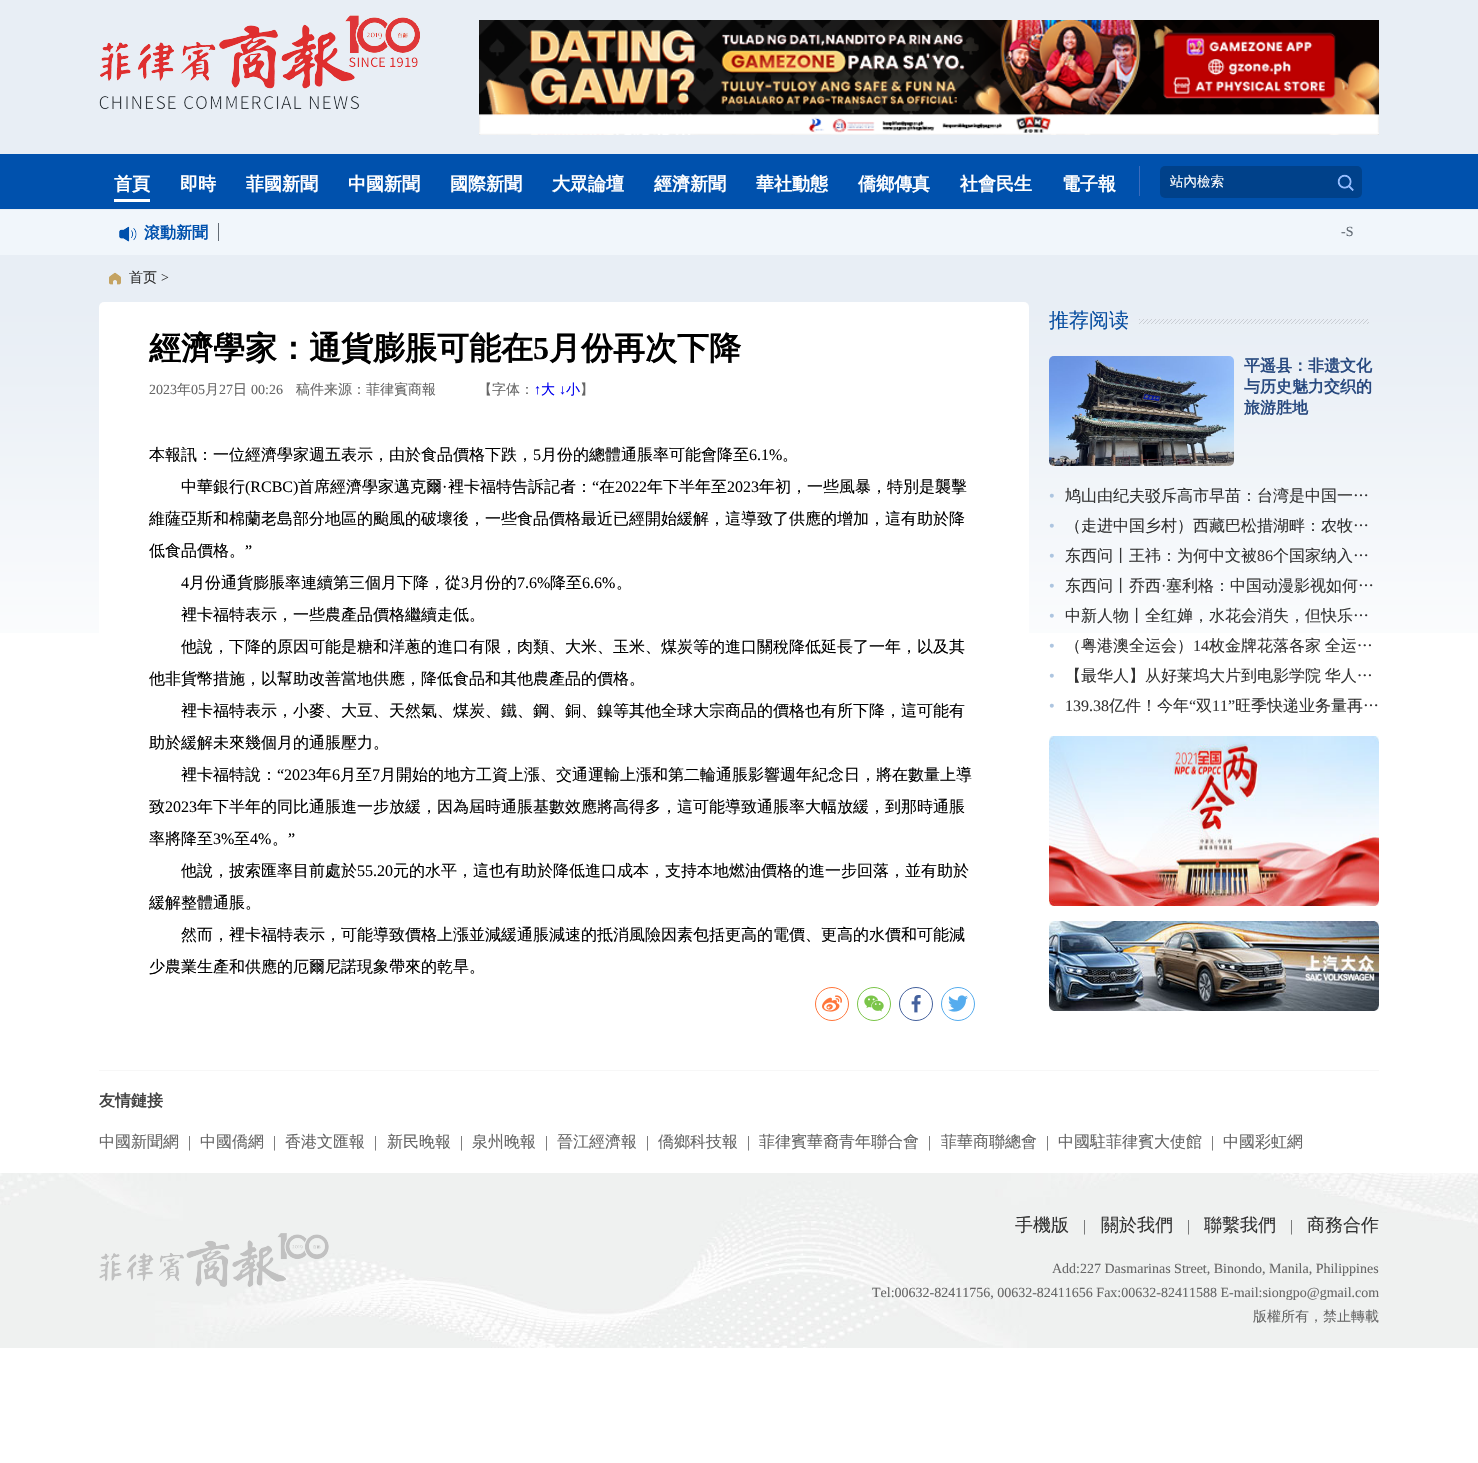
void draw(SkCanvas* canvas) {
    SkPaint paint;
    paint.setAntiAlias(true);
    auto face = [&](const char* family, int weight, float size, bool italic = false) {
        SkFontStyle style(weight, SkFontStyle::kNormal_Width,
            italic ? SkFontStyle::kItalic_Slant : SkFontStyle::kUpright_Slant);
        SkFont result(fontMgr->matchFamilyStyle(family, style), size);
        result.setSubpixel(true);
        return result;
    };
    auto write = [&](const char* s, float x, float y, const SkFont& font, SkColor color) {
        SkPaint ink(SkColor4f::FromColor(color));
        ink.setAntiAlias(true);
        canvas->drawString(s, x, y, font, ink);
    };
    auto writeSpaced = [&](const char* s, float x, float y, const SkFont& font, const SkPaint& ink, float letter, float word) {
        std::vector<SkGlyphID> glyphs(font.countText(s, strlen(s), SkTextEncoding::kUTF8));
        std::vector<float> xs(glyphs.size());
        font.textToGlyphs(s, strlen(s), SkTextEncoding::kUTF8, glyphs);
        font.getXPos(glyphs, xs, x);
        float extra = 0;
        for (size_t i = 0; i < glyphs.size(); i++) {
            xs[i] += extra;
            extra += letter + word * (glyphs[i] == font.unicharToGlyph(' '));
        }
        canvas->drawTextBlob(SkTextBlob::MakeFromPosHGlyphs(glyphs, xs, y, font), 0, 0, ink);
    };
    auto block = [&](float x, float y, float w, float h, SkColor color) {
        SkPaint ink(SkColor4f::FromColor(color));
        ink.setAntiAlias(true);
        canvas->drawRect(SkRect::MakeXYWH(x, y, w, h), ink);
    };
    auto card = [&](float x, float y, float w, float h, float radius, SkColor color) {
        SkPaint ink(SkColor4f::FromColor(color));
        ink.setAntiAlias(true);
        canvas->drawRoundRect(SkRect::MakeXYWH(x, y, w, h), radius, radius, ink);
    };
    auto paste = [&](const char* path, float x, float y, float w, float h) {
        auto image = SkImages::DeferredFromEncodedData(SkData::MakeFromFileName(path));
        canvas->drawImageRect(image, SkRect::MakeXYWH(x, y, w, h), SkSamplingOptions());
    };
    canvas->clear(SK_ColorWHITE);
    paste("pic1.png", 0, 0, 1478, 633);
    paste("pic2.png", 99, 15, 321, 95);
    paste("pic3.png", 479, 20, 900, 115);
    paste("pic4.png", 0, 154, 1478, 101);
    block(114, 199, 36, 3, SK_ColorWHITE);
    auto kFont1 = face("WenQuanYi Zen Hei", 700, 18);
    write("首頁", 114, 190, kFont1, SK_ColorWHITE);
    write("即時", 180, 190, kFont1, SK_ColorWHITE);
    write("菲國新聞", 246, 190, kFont1, SK_ColorWHITE);
    write("中國新聞", 348, 190, kFont1, SK_ColorWHITE);
    write("國際新聞", 450, 190, kFont1, SK_ColorWHITE);
    write("大眾論壇", 552, 190, kFont1, SK_ColorWHITE);
    write("經濟新聞", 654, 190, kFont1, SK_ColorWHITE);
    write("華社動態", 756, 190, kFont1, SK_ColorWHITE);
    write("僑鄉傳真", 858, 190, kFont1, SK_ColorWHITE);
    write("社會民生", 960, 190, kFont1, SK_ColorWHITE);
    write("電子報", 1062, 190, kFont1, SK_ColorWHITE);
    block(1139, 166, 1, 30, SkColorSetRGB(60, 108, 189));
    card(1160, 166, 202, 32, 5, SkColorSetRGB(0, 65, 138));
    auto kFont2 = face("WenQuanYi Zen Hei", 500, 13.5f);
    write("站內檢索", 1170, 186, kFont2, SK_ColorWHITE);
    paste("pic5.png", 1337, 174, 17, 17);
    paste("pic6.png", 119, 226, 18, 16);
    auto kFont3 = face("WenQuanYi Zen Hei", 700, 16);
    write("滾動新聞", 144, 238, kFont3, SkColorSetRGB(0, 81, 173));
    block(218, 223, 1, 18, SkColorSetRGB(99, 107, 116));
    auto kFont4 = face("Liberation Serif", 400, 14);
    write("-S", 1341, 236, kFont4, SkColorSetRGB(99, 107, 116));
    paste("pic7.png", 109, 272, 12, 13);
    auto kFont5 = face("WenQuanYi Zen Hei", 500, 14);
    write("首页", 129, 282, kFont5, SkColorSetRGB(51, 51, 51));
    write(">", 161, 282, kFont4, SkColorSetRGB(51, 51, 51));
    card(99, 302, 930, 748, 5, SK_ColorWHITE);
    auto kFont6 = face("WenQuanYi Zen Hei", 700, 32);
    write("經濟學家：通貨膨脹可能在", 149, 359, kFont6, SK_ColorBLACK);
    auto kFont7 = face("Liberation Serif", 700, 32);
    write("5", 533, 359, kFont7, SK_ColorBLACK);
    write("月份再次下降", 549, 359, kFont6, SK_ColorBLACK);
    write("2023", 149, 394, kFont4, SkColorSetRGB(102, 102, 102));
    write("年", 177, 394, kFont5, SkColorSetRGB(102, 102, 102));
    write("05", 191, 394, kFont4, SkColorSetRGB(102, 102, 102));
    write("月", 205, 394, kFont5, SkColorSetRGB(102, 102, 102));
    write("27", 219, 394, kFont4, SkColorSetRGB(102, 102, 102));
    write("日", 233, 394, kFont5, SkColorSetRGB(102, 102, 102));
    write("00:26", 251, 394, kFont4, SkColorSetRGB(102, 102, 102));
    write("稿件来源：菲律賓商報　　　【字体：", 296, 394, kFont5, SkColorSetRGB(102, 102, 102));
    write("↑", 534, 394, kFont4, SkColorSetRGB(0, 0, 238));
    write("大", 541, 394, kFont5, SkColorSetRGB(0, 0, 238));
    write("↓", 559, 394, kFont4, SkColorSetRGB(0, 0, 238));
    write("小", 566, 394, kFont5, SkColorSetRGB(0, 0, 238));
    write("】", 580, 394, kFont5, SkColorSetRGB(102, 102, 102));
    auto kFont8 = face("WenQuanYi Zen Hei", 500, 16);
    write("本報訊：一位經濟學家週五表示，由於食品價格下跌，", 149, 460, kFont8, SK_ColorBLACK);
    auto kFont9 = face("Liberation Serif", 400, 16);
    write("5", 533, 460, kFont9, SK_ColorBLACK);
    write("月份的總體通脹率可能會降至", 541, 460, kFont8, SK_ColorBLACK);
    write("6.1%", 749, 460, kFont9, SK_ColorBLACK);
    write("。", 782, 460, kFont8, SK_ColorBLACK);
    write("中華銀行", 181, 492, kFont8, SK_ColorBLACK);
    write("(RCBC)", 245, 492, kFont9, SK_ColorBLACK);
    write("首席經濟學家邁克爾", 298, 492, kFont8, SK_ColorBLACK);
    write("·", 442, 492, kFont9, SK_ColorBLACK);
    write("裡卡福特告訴記者：", 448, 492, kFont8, SK_ColorBLACK);
    write("“", 592, 492, kFont9, SK_ColorBLACK);
    write("在", 599, 492, kFont8, SK_ColorBLACK);
    write("2022", 615, 492, kFont9, SK_ColorBLACK);
    write("年下半年至", 647, 492, kFont8, SK_ColorBLACK);
    write("2023", 727, 492, kFont9, SK_ColorBLACK);
    write("年初，一些風暴，特別是襲擊", 759, 492, kFont8, SK_ColorBLACK);
    write("維薩亞斯和棉蘭老島部分地區的颱風的破壞後，一些食品價格最近已經開始緩解，這導致了供應的增加，這有助於降", 149, 524, kFont8, SK_ColorBLACK);
    write("低食品價格。", 149, 556, kFont8, SK_ColorBLACK);
    write("”", 245, 556, kFont9, SK_ColorBLACK);
    write("4", 181, 588, kFont9, SK_ColorBLACK);
    write("月份通貨膨脹率連續第三個月下降，從", 189, 588, kFont8, SK_ColorBLACK);
    write("3", 461, 588, kFont9, SK_ColorBLACK);
    write("月份的", 469, 588, kFont8, SK_ColorBLACK);
    write("7.6%", 517, 588, kFont9, SK_ColorBLACK);
    write("降至", 550, 588, kFont8, SK_ColorBLACK);
    write("6.6%", 582, 588, kFont9, SK_ColorBLACK);
    write("。", 616, 588, kFont8, SK_ColorBLACK);
    write("裡卡福特表示，一些農產品價格繼續走低。", 181, 620, kFont8, SK_ColorBLACK);
    write("他說，下降的原因可能是糖和洋蔥的進口有限，肉類、大米、玉米、煤炭等的進口關稅降低延長了一年，以及其", 181, 652, kFont8, SK_ColorBLACK);
    write("他非貨幣措施，以幫助改善當地供應，降低食品和其他農產品的價格。", 149, 684, kFont8, SK_ColorBLACK);
    write("裡卡福特表示，小麥、大豆、天然氣、煤炭、鐵、鋼、銅、鎳等其他全球大宗商品的價格也有所下降，這可能有", 181, 716, kFont8, SK_ColorBLACK);
    write("助於緩解未來幾個月的通脹壓力。", 149, 748, kFont8, SK_ColorBLACK);
    write("裡卡福特說：", 181, 780, kFont8, SK_ColorBLACK);
    write("“2023", 277, 780, kFont9, SK_ColorBLACK);
    write("年", 316, 780, kFont8, SK_ColorBLACK);
    write("6", 332, 780, kFont9, SK_ColorBLACK);
    write("月至", 340, 780, kFont8, SK_ColorBLACK);
    write("7", 372, 780, kFont9, SK_ColorBLACK);
    write("月開始的地方工資上漲、交通運輸上漲和第二輪通脹影響週年紀念日，將在數量上導", 380, 780, kFont8, SK_ColorBLACK);
    write("致", 149, 812, kFont8, SK_ColorBLACK);
    write("2023", 165, 812, kFont9, SK_ColorBLACK);
    write("年下半年的同比通脹進一步放緩，因為屆時通脹基數效應將高得多，這可能導致通脹率大幅放緩，到那時通脹", 197, 812, kFont8, SK_ColorBLACK);
    write("率將降至", 149, 844, kFont8, SK_ColorBLACK);
    write("3%", 213, 844, kFont9, SK_ColorBLACK);
    write("至", 234, 844, kFont8, SK_ColorBLACK);
    write("4%", 250, 844, kFont9, SK_ColorBLACK);
    write("”", 288, 844, kFont9, SK_ColorBLACK);
    write("。", 272, 844, kFont8, SK_ColorBLACK);
    write("他說，披索匯率目前處於", 181, 876, kFont8, SK_ColorBLACK);
    write("55.20", 357, 876, kFont9, SK_ColorBLACK);
    write("元的水平，這也有助於降低進口成本，支持本地燃油價格的進一步回落，並有助於", 393, 876, kFont8, SK_ColorBLACK);
    write("緩解整體通脹。", 149, 908, kFont8, SK_ColorBLACK);
    write("然而，裡卡福特表示，可能導致價格上漲並減緩通脹減速的抵消風險因素包括更高的電價、更高的水價和可能減", 181, 940, kFont8, SK_ColorBLACK);
    write("少農業生產和供應的厄爾尼諾現象帶來的乾旱。", 149, 972, kFont8, SK_ColorBLACK);
    paint.setStyle(SkPaint::kStroke_Style);
    paint.setStrokeWidth(1);
    paint.setColor(SkColorSetRGB(255, 118, 59));
    canvas->drawCircle(832, 1004, 16.5f, paint);
    paste("pic8.png", 822, 995, 20, 17);
    paint.setColor(SkColorSetRGB(123, 197, 73));
    canvas->drawCircle(874, 1004, 16.5f, paint);
    paste("pic9.png", 864, 995, 20, 17);
    paint.setColor(SkColorSetRGB(68, 97, 157));
    canvas->drawCircle(916, 1004, 16.5f, paint);
    paste("pic10.png", 911, 995, 10, 18);
    paint.setColor(SkColorSetRGB(85, 172, 238));
    canvas->drawCircle(958, 1004, 16.5f, paint);
    paste("pic11.png", 948, 995, 20, 17);
    auto kFont10 = face("WenQuanYi Zen Hei", 500, 20);
    write("推荐阅读", 1049, 327, kFont10, SkColorSetRGB(8, 78, 160));
    paste("pic12.png", 1139, 319, 230, 5);
    paste("pic13.png", 1049, 356, 185, 110);
    write("平遥县：非遗文化", 1244, 371, kFont3, SkColorSetRGB(40, 73, 127));
    write("与历史魅力交织的", 1244, 392, kFont3, SkColorSetRGB(40, 73, 127));
    write("旅游胜地", 1244, 413, kFont3, SkColorSetRGB(40, 73, 127));
    write("•", 1049, 501, kFont9, SkColorSetRGB(173, 197, 224));
    paint.setStyle(SkPaint::kFill_Style);
    paint.setColor(SkColorSetRGB(51, 51, 51));
    writeSpaced("鸠山由纪夫驳斥高市早苗：台湾是中国一…", 1065, 501, kFont8, paint, 0, -1);
    write("•", 1049, 531, kFont9, SkColorSetRGB(173, 197, 224));
    write("（走进中国乡村）西藏巴松措湖畔：农牧…", 1065, 531, kFont8, SkColorSetRGB(51, 51, 51));
    write("•", 1049, 561, kFont9, SkColorSetRGB(173, 197, 224));
    write("东西问丨王祎：为何中文被", 1065, 561, kFont8, SkColorSetRGB(51, 51, 51));
    write("86", 1257, 561, kFont9, SkColorSetRGB(51, 51, 51));
    write("个国家纳入…", 1273, 561, kFont8, SkColorSetRGB(51, 51, 51));
    write("•", 1049, 591, kFont9, SkColorSetRGB(173, 197, 224));
    write("东西问丨乔西", 1065, 591, kFont8, SkColorSetRGB(51, 51, 51));
    write("·", 1161, 591, kFont9, SkColorSetRGB(51, 51, 51));
    write("塞利格：中国动漫影视如何…", 1166, 591, kFont8, SkColorSetRGB(51, 51, 51));
    write("•", 1049, 621, kFont9, SkColorSetRGB(173, 197, 224));
    write("中新人物丨全红婵，水花会消失，但快乐…", 1065, 621, kFont8, SkColorSetRGB(51, 51, 51));
    write("•", 1049, 651, kFont9, SkColorSetRGB(173, 197, 224));
    write("（粤港澳全运会）", 1065, 651, kFont8, SkColorSetRGB(51, 51, 51));
    write("14", 1193, 651, kFont9, SkColorSetRGB(51, 51, 51));
    writeSpaced("枚金牌花落各家 全运…", 1209, 651, kFont8, paint, 0, -1);
    write("•", 1049, 681, kFont9, SkColorSetRGB(173, 197, 224));
    writeSpaced("【最华人】从好莱坞大片到电影学院 华人…", 1065, 681, kFont8, paint, 0, -1);
    write("•", 1049, 711, kFont9, SkColorSetRGB(173, 197, 224));
    write("139.38", 1065, 711, kFont9, SkColorSetRGB(51, 51, 51));
    write("亿件！今年", 1109, 711, kFont8, SkColorSetRGB(51, 51, 51));
    write("“", 1189, 711, kFont9, SkColorSetRGB(51, 51, 51));
    write("双", 1196, 711, kFont8, SkColorSetRGB(51, 51, 51));
    write("11”", 1212, 711, kFont9, SkColorSetRGB(51, 51, 51));
    write("旺季快递业务量再…", 1235, 711, kFont8, SkColorSetRGB(51, 51, 51));
    paste("pic14.png", 1049, 736, 330, 170);
    paste("pic15.png", 1049, 921, 330, 90);
    block(99, 1070, 1280, 1, SkColorSetRGB(247, 247, 247));
    write("友情鏈接", 99, 1106, kFont3, SkColorSetRGB(68, 68, 68));
    write("中國新聞網", 99, 1147, kFont8, SkColorSetRGB(102, 102, 102));
    write("|", 188, 1147, kFont9, SkColorSetRGB(102, 102, 102));
    write("中國僑網", 200, 1147, kFont8, SkColorSetRGB(102, 102, 102));
    write("|", 273, 1147, kFont9, SkColorSetRGB(102, 102, 102));
    write("香港文匯報", 285, 1147, kFont8, SkColorSetRGB(102, 102, 102));
    write("|", 374, 1147, kFont9, SkColorSetRGB(102, 102, 102));
    write("新民晚報", 387, 1147, kFont8, SkColorSetRGB(102, 102, 102));
    write("|", 460, 1147, kFont9, SkColorSetRGB(102, 102, 102));
    write("泉州晚報", 472, 1147, kFont8, SkColorSetRGB(102, 102, 102));
    write("|", 545, 1147, kFont9, SkColorSetRGB(102, 102, 102));
    write("晉江經濟報", 557, 1147, kFont8, SkColorSetRGB(102, 102, 102));
    write("|", 646, 1147, kFont9, SkColorSetRGB(102, 102, 102));
    write("僑鄉科技報", 658, 1147, kFont8, SkColorSetRGB(102, 102, 102));
    write("|", 747, 1147, kFont9, SkColorSetRGB(102, 102, 102));
    write("菲律賓華裔青年聯合會", 759, 1147, kFont8, SkColorSetRGB(102, 102, 102));
    write("|", 928, 1147, kFont9, SkColorSetRGB(102, 102, 102));
    write("菲華商聯總會", 941, 1147, kFont8, SkColorSetRGB(102, 102, 102));
    write("|", 1046, 1147, kFont9, SkColorSetRGB(102, 102, 102));
    write("中國駐菲律賓大使館", 1058, 1147, kFont8, SkColorSetRGB(102, 102, 102));
    write("|", 1211, 1147, kFont9, SkColorSetRGB(102, 102, 102));
    write("中國彩虹網", 1223, 1147, kFont8, SkColorSetRGB(102, 102, 102));
    paste("pic16.png", 0, 1173, 1478, 175);
    paste("pic17.png", 99, 1233, 230, 54);
    auto kFont11 = face("WenQuanYi Zen Hei", 500, 18);
    write("手機版", 1015, 1231, kFont11, SkColorSetRGB(51, 51, 51));
    write("|", 1083, 1231, kFont9, SkColorSetRGB(102, 102, 102));
    write("關於我們", 1101, 1231, kFont11, SkColorSetRGB(51, 51, 51));
    write("|", 1187, 1231, kFont9, SkColorSetRGB(102, 102, 102));
    write("聯繫我們", 1204, 1231, kFont11, SkColorSetRGB(51, 51, 51));
    write("|", 1290, 1231, kFont9, SkColorSetRGB(102, 102, 102));
    write("商務合作", 1307, 1231, kFont11, SkColorSetRGB(51, 51, 51));
    write("Add:227 Dasmarinas Street, Binondo, Manila, Philippines", 1052, 1273, kFont4, SkColorSetRGB(102, 102, 102));
    write("Tel:00632-82411756, 00632-82411656 Fax:00632-82411588 E-mail:siongpo@gmail.com", 872, 1297, kFont4, SkColorSetRGB(102, 102, 102));
    write("版權所有，禁止轉載", 1253, 1321, kFont5, SkColorSetRGB(102, 102, 102));
}
